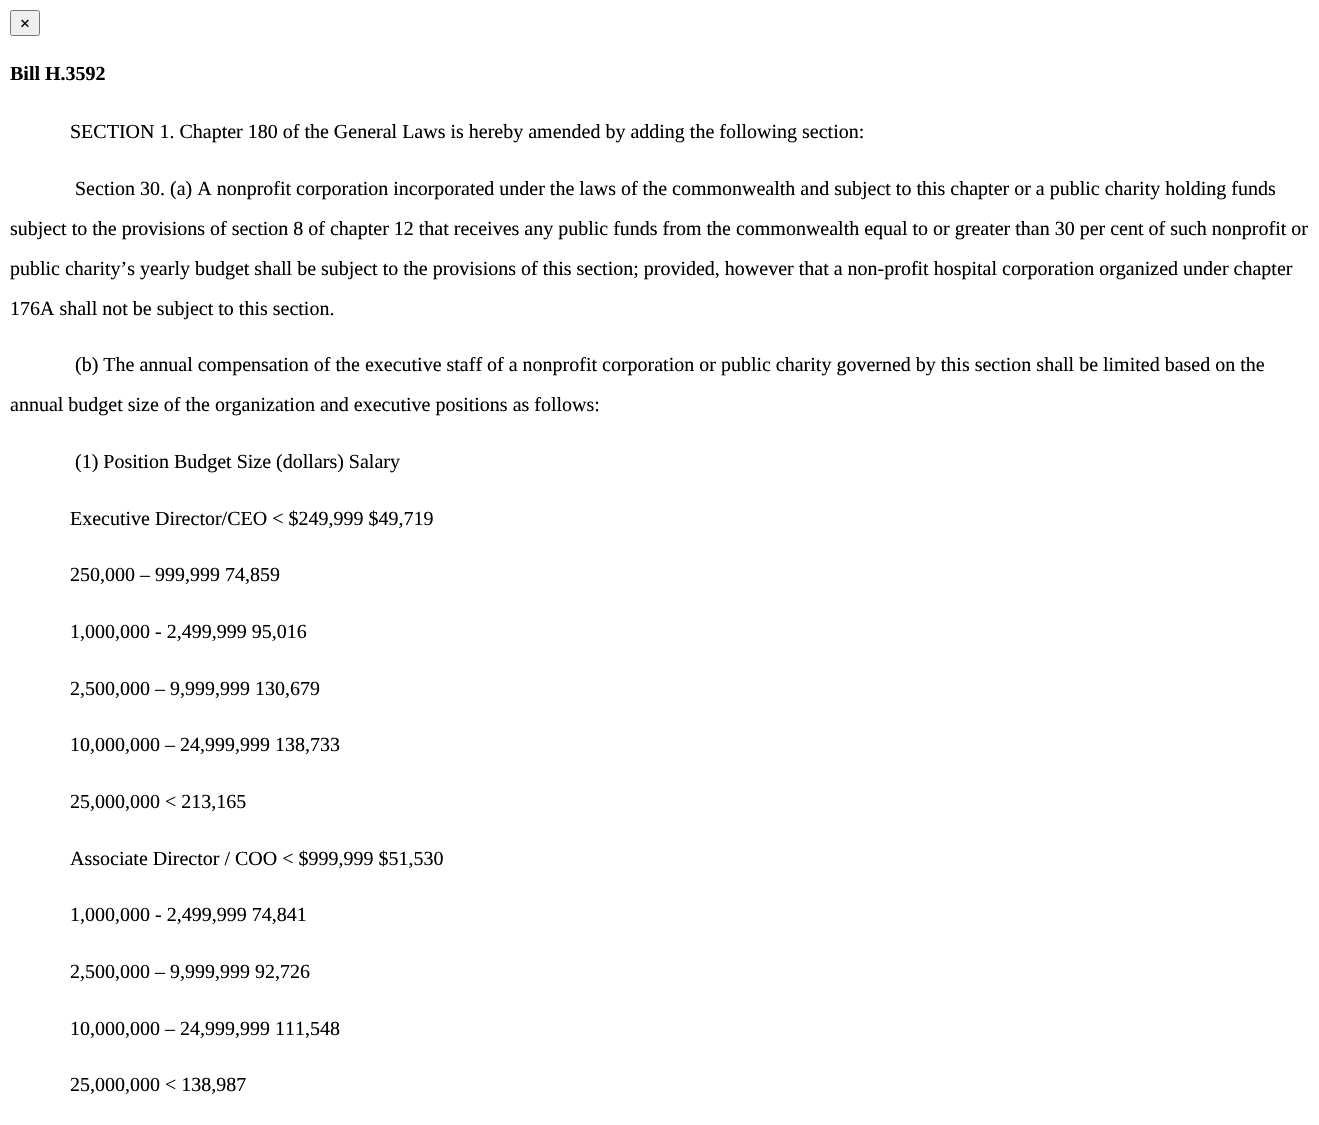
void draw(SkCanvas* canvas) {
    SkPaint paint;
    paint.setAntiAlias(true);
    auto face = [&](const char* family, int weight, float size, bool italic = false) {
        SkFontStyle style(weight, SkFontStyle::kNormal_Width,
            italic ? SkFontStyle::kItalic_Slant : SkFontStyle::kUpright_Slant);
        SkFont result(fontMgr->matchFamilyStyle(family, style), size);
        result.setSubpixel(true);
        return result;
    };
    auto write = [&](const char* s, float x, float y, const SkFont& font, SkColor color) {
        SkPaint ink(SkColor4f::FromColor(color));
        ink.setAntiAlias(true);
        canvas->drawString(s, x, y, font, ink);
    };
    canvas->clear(SK_ColorWHITE);
    paint.setColor(SkColorSetRGB(239, 239, 239));
    canvas->drawRoundRect(SkRect::MakeXYWH(10.5f, 10.5f, 29, 25), 2, 2, paint);
    paint.setStyle(SkPaint::kStroke_Style);
    paint.setStrokeWidth(1);
    paint.setColor(SkColorSetRGB(118, 118, 118));
    canvas->drawRoundRect(SkRect::MakeXYWH(10.5f, 10.5f, 29, 25), 2, 2, paint);
    auto kFont1 = face("Liberation Sans", 400, 17);
    write("×", 20, 29, kFont1, SK_ColorBLACK);
    auto kFont2 = face("Liberation Serif", 700, 20);
    write("Bill H.3592", 10, 80, kFont2, SK_ColorBLACK);
    auto kFont3 = face("Liberation Serif", 400, 20);
    write("SECTION 1. Chapter 180 of the General Laws is hereby amended by adding the following section:", 70, 138, kFont3, SK_ColorBLACK);
    write("Section 30. (a) A nonprofit corporation incorporated under the laws of the commonwealth and subject to this chapter or a public charity holding funds", 75, 195, kFont3, SK_ColorBLACK);
    write("subject to the provisions of section 8 of chapter 12 that receives any public funds from the commonwealth equal to or greater than 30 per cent of such nonprofit or", 10, 235, kFont3, SK_ColorBLACK);
    write("public charity’s yearly budget shall be subject to the provisions of this section; provided, however that a non-profit hospital corporation organized under chapter", 10, 275, kFont3, SK_ColorBLACK);
    write("176A shall not be subject to this section.", 10, 315, kFont3, SK_ColorBLACK);
    write("(b) The annual compensation of the executive staff of a nonprofit corporation or public charity governed by this section shall be limited based on the", 75, 371, kFont3, SK_ColorBLACK);
    write("annual budget size of the organization and executive positions as follows:", 10, 411, kFont3, SK_ColorBLACK);
    write("(1) Position Budget Size (dollars) Salary", 75, 468, kFont3, SK_ColorBLACK);
    write("Executive Director/CEO < $249,999 $49,719", 70, 525, kFont3, SK_ColorBLACK);
    write("250,000 – 999,999 74,859", 70, 581, kFont3, SK_ColorBLACK);
    write("1,000,000 - 2,499,999 95,016", 70, 638, kFont3, SK_ColorBLACK);
    write("2,500,000 – 9,999,999 130,679", 70, 695, kFont3, SK_ColorBLACK);
    write("10,000,000 – 24,999,999 138,733", 70, 751, kFont3, SK_ColorBLACK);
    write("25,000,000 < 213,165", 70, 808, kFont3, SK_ColorBLACK);
    write("Associate Director / COO < $999,999 $51,530", 70, 865, kFont3, SK_ColorBLACK);
    write("1,000,000 - 2,499,999 74,841", 70, 921, kFont3, SK_ColorBLACK);
    write("2,500,000 – 9,999,999 92,726", 70, 978, kFont3, SK_ColorBLACK);
    write("10,000,000 – 24,999,999 111,548", 70, 1035, kFont3, SK_ColorBLACK);
    write("25,000,000 < 138,987", 70, 1091, kFont3, SK_ColorBLACK);
}
